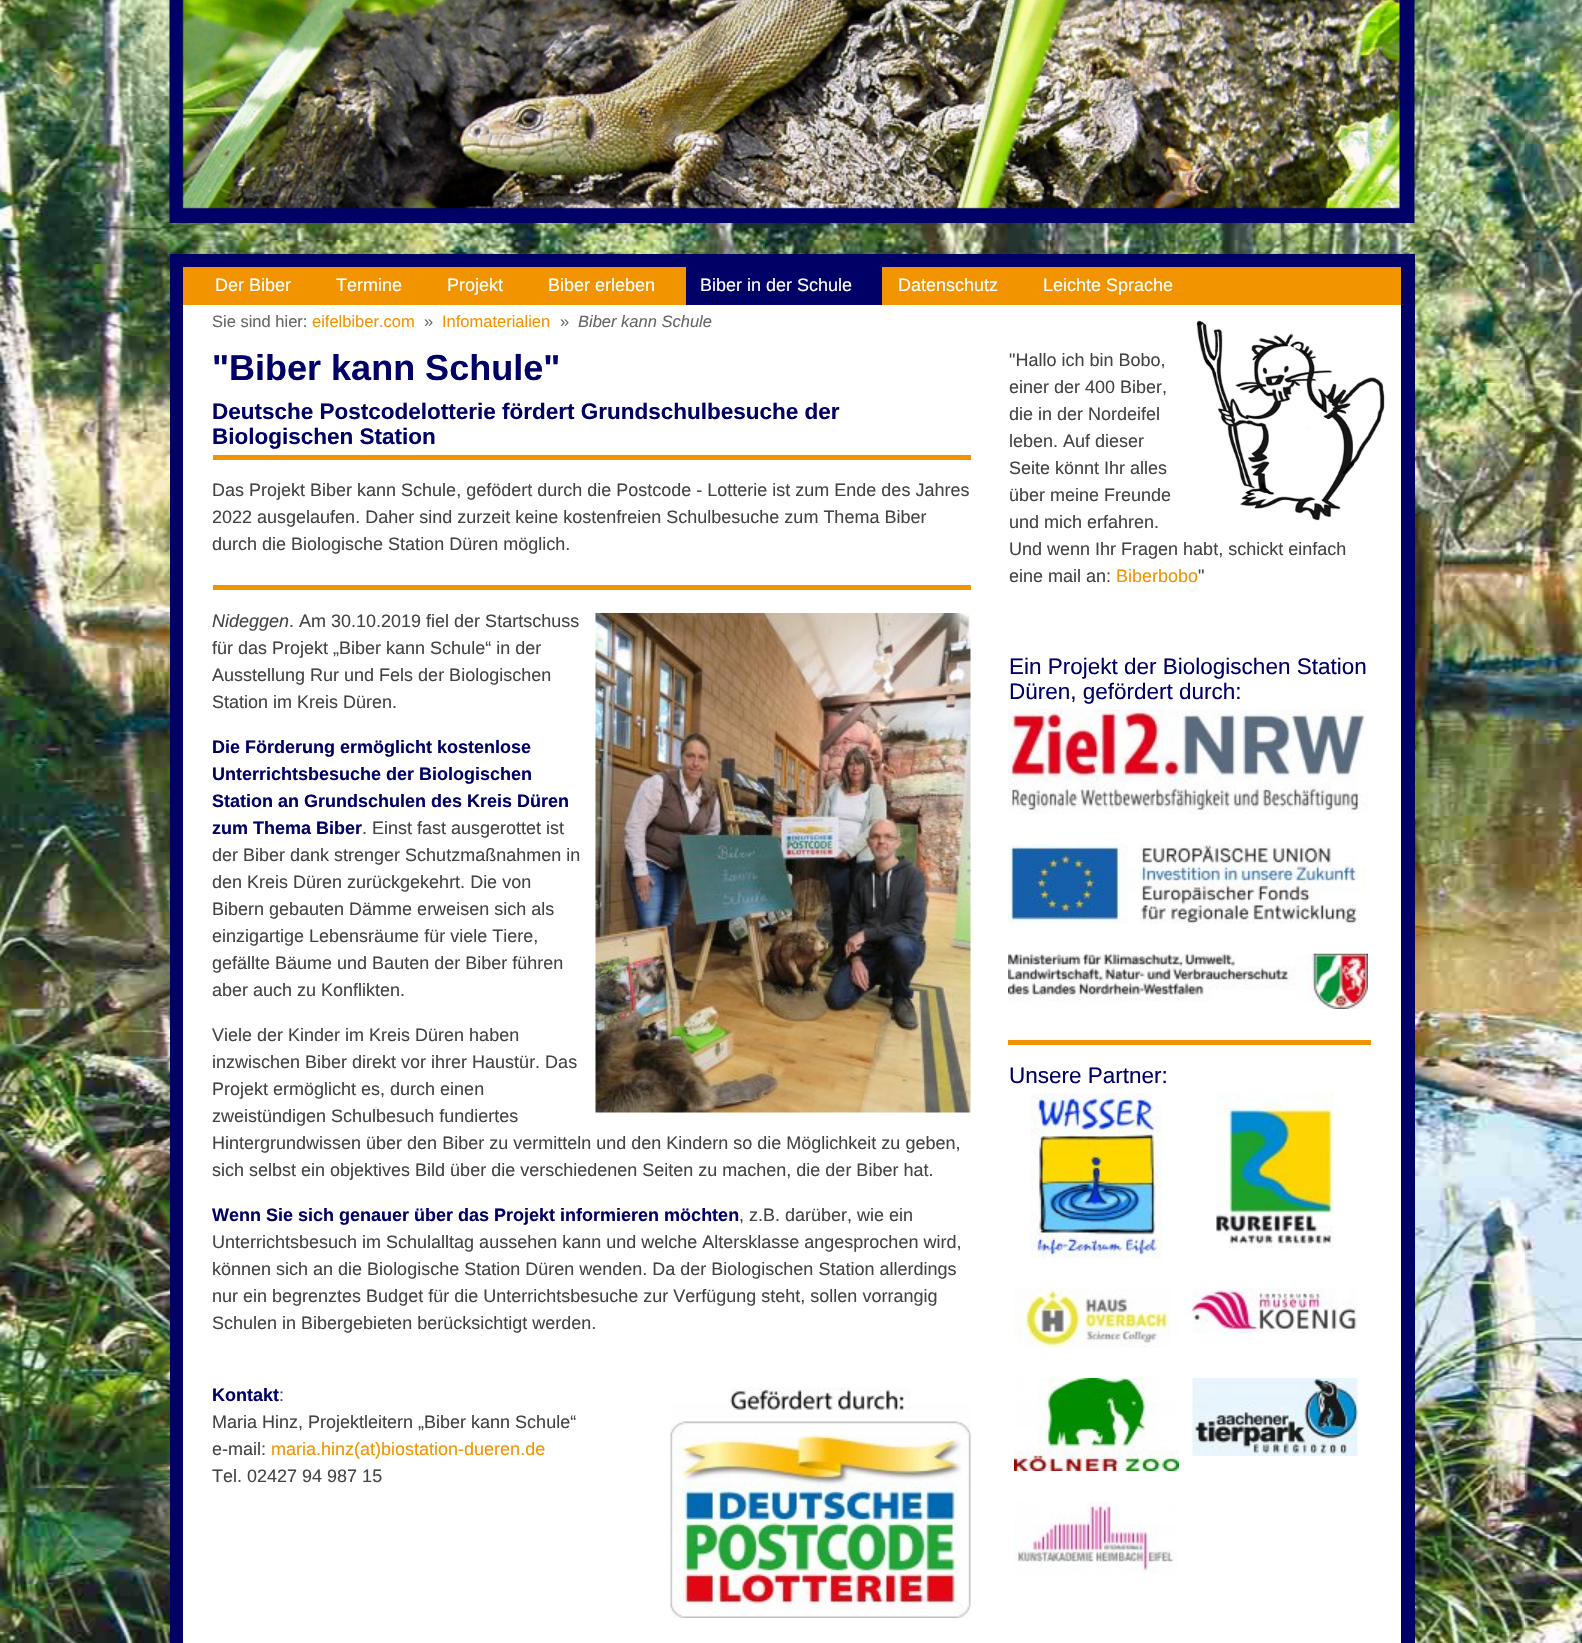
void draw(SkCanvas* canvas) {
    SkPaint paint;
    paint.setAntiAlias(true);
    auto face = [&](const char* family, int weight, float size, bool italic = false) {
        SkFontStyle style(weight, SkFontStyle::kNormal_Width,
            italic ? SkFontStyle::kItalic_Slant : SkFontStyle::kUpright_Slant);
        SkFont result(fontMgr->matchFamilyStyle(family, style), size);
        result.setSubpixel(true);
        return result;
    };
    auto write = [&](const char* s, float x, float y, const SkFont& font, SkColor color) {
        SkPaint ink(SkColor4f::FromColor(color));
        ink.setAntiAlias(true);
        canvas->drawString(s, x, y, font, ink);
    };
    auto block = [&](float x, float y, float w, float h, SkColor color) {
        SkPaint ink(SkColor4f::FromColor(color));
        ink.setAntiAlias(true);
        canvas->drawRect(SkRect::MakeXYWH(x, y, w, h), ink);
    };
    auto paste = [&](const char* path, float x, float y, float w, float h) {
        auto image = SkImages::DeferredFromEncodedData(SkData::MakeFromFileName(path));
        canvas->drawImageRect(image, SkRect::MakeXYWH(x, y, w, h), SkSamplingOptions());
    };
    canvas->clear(SK_ColorWHITE);
    paste("pic1.png", 0, 0, 1582, 1643);
    paste("pic2.png", 169, 0, 1246, 223);
    block(170, 254, 1245, 1389, SkColorSetRGB(1, 0, 102));
    block(183, 305, 1218, 1338, SK_ColorWHITE);
    block(183, 267, 1218, 38, SkColorSetRGB(242, 148, 0));
    auto kFont1 = face("Liberation Sans", 400, 18);
    write("Der Biber", 215, 291, kFont1, SK_ColorWHITE);
    write("Termine", 336, 291, kFont1, SK_ColorWHITE);
    write("Projekt", 447, 291, kFont1, SK_ColorWHITE);
    write("Biber erleben", 548, 291, kFont1, SK_ColorWHITE);
    block(686, 267, 196, 38, SkColorSetRGB(1, 0, 102));
    write("Biber in der Schule", 700, 291, kFont1, SK_ColorWHITE);
    write("Datenschutz", 898, 291, kFont1, SK_ColorWHITE);
    write("Leichte Sprache", 1043, 291, kFont1, SK_ColorWHITE);
    auto kFont2 = face("Liberation Sans", 400, 16.5f);
    write("Sie sind hier:", 212, 327, kFont2, SkColorSetRGB(102, 102, 102));
    write("eifelbiber.com", 312, 327, kFont2, SkColorSetRGB(242, 148, 0));
    write("»", 424, 327, kFont2, SkColorSetRGB(102, 102, 102));
    write("Infomaterialien", 442, 327, kFont2, SkColorSetRGB(242, 148, 0));
    write("»", 560, 327, kFont2, SkColorSetRGB(102, 102, 102));
    auto kFont3 = face("Liberation Sans", 400, 16.5f, true);
    write("Biber kann Schule", 578, 327, kFont3, SkColorSetRGB(102, 102, 102));
    auto kFont4 = face("Liberation Sans", 700, 36);
    write("\"Biber kann Schule\"", 212, 380, kFont4, SkColorSetRGB(1, 0, 102));
    auto kFont5 = face("Liberation Sans", 700, 22.5f);
    write("Deutsche Postcodelotterie fördert Grundschulbesuche der", 212, 419, kFont5, SkColorSetRGB(1, 0, 102));
    write("Biologischen Station", 212, 444, kFont5, SkColorSetRGB(1, 0, 102));
    block(213, 455, 758, 5, SkColorSetRGB(242, 148, 0));
    write("Das Projekt Biber kann Schule, gefödert durch die Postcode - Lotterie ist zum Ende des Jahres", 212, 496, kFont1, SkColorSetRGB(68, 68, 68));
    write("2022 ausgelaufen. Daher sind zurzeit keine kostenfreien Schulbesuche zum Thema Biber", 212, 523, kFont1, SkColorSetRGB(68, 68, 68));
    write("durch die Biologische Station Düren möglich.", 212, 550, kFont1, SkColorSetRGB(68, 68, 68));
    block(213, 585, 758, 5, SkColorSetRGB(242, 148, 0));
    auto kFont6 = face("Liberation Sans", 400, 18, true);
    write("Nideggen", 212, 627, kFont6, SkColorSetRGB(68, 68, 68));
    write(". Am 30.10.2019 fiel der Startschuss", 289, 627, kFont1, SkColorSetRGB(68, 68, 68));
    write("für das Projekt „Biber kann Schule“ in der", 212, 654, kFont1, SkColorSetRGB(68, 68, 68));
    write("Ausstellung Rur und Fels der Biologischen", 212, 681, kFont1, SkColorSetRGB(68, 68, 68));
    write("Station im Kreis Düren.", 212, 708, kFont1, SkColorSetRGB(68, 68, 68));
    paste("pic3.png", 595, 613, 376, 500);
    auto kFont7 = face("Liberation Sans", 700, 18);
    write("Die Förderung ermöglicht kostenlose", 212, 753, kFont7, SkColorSetRGB(1, 0, 102));
    write("Unterrichtsbesuche der Biologischen", 212, 780, kFont7, SkColorSetRGB(1, 0, 102));
    write("Station an Grundschulen des Kreis Düren", 212, 807, kFont7, SkColorSetRGB(1, 0, 102));
    write("zum Thema Biber", 212, 834, kFont7, SkColorSetRGB(1, 0, 102));
    write(". Einst fast ausgerottet ist", 362, 834, kFont1, SkColorSetRGB(68, 68, 68));
    write("der Biber dank strenger Schutzmaßnahmen in", 212, 861, kFont1, SkColorSetRGB(68, 68, 68));
    write("den Kreis Düren zurückgekehrt. Die von", 212, 888, kFont1, SkColorSetRGB(68, 68, 68));
    write("Bibern gebauten Dämme erweisen sich als", 212, 915, kFont1, SkColorSetRGB(68, 68, 68));
    write("einzigartige Lebensräume für viele Tiere,", 212, 942, kFont1, SkColorSetRGB(68, 68, 68));
    write("gefällte Bäume und Bauten der Biber führen", 212, 969, kFont1, SkColorSetRGB(68, 68, 68));
    write("aber auch zu Konflikten.", 212, 996, kFont1, SkColorSetRGB(68, 68, 68));
    write("Viele der Kinder im Kreis Düren haben", 212, 1041, kFont1, SkColorSetRGB(68, 68, 68));
    write("inzwischen Biber direkt vor ihrer Haustür. Das", 212, 1068, kFont1, SkColorSetRGB(68, 68, 68));
    write("Projekt ermöglicht es, durch einen", 212, 1095, kFont1, SkColorSetRGB(68, 68, 68));
    write("zweistündigen Schulbesuch fundiertes", 212, 1122, kFont1, SkColorSetRGB(68, 68, 68));
    write("Hintergrundwissen über den Biber zu vermitteln und den Kindern so die Möglichkeit zu geben,", 212, 1149, kFont1, SkColorSetRGB(68, 68, 68));
    write("sich selbst ein objektives Bild über die verschiedenen Seiten zu machen, die der Biber hat.", 212, 1176, kFont1, SkColorSetRGB(68, 68, 68));
    write("Wenn Sie sich genauer über das Projekt informieren möchten", 212, 1221, kFont7, SkColorSetRGB(1, 0, 102));
    write(", z.B. darüber, wie ein", 739, 1221, kFont1, SkColorSetRGB(68, 68, 68));
    write("Unterrichtsbesuch im Schulalltag aussehen kann und welche Altersklasse angesprochen wird,", 212, 1248, kFont1, SkColorSetRGB(68, 68, 68));
    write("können sich an die Biologische Station Düren wenden. Da der Biologischen Station allerdings", 212, 1275, kFont1, SkColorSetRGB(68, 68, 68));
    write("nur ein begrenztes Budget für die Unterrichtsbesuche zur Verfügung steht, sollen vorrangig", 212, 1302, kFont1, SkColorSetRGB(68, 68, 68));
    write("Schulen in Bibergebieten berücksichtigt werden.", 212, 1329, kFont1, SkColorSetRGB(68, 68, 68));
    write("Kontakt", 212, 1401, kFont7, SkColorSetRGB(1, 0, 102));
    write(":", 279, 1401, kFont1, SkColorSetRGB(68, 68, 68));
    write("Maria Hinz, Projektleitern „Biber kann Schule“", 212, 1428, kFont1, SkColorSetRGB(68, 68, 68));
    write("e-mail:", 212, 1455, kFont1, SkColorSetRGB(68, 68, 68));
    write("maria.hinz(at)biostation-dueren.de", 271, 1455, kFont1, SkColorSetRGB(242, 148, 0));
    write("Tel. 02427 94 987 15", 212, 1482, kFont1, SkColorSetRGB(68, 68, 68));
    paste("pic4.png", 670, 1387, 301, 231);
    write("\"Hallo ich bin Bobo,", 1009, 366, kFont1, SkColorSetRGB(68, 68, 68));
    paste("pic5.png", 1196, 320, 189, 201);
    write("einer der 400 Biber,", 1009, 393, kFont1, SkColorSetRGB(68, 68, 68));
    write("die in der Nordeifel", 1009, 420, kFont1, SkColorSetRGB(68, 68, 68));
    write("leben. Auf dieser", 1009, 447, kFont1, SkColorSetRGB(68, 68, 68));
    write("Seite könnt Ihr alles", 1009, 474, kFont1, SkColorSetRGB(68, 68, 68));
    write("über meine Freunde", 1009, 501, kFont1, SkColorSetRGB(68, 68, 68));
    write("und mich erfahren.", 1009, 528, kFont1, SkColorSetRGB(68, 68, 68));
    write("Und wenn Ihr Fragen habt, schickt einfach", 1009, 555, kFont1, SkColorSetRGB(68, 68, 68));
    write("eine mail an:", 1009, 582, kFont1, SkColorSetRGB(68, 68, 68));
    write("Biberbobo", 1116, 582, kFont1, SkColorSetRGB(242, 148, 0));
    write("\"", 1198, 582, kFont1, SkColorSetRGB(68, 68, 68));
    auto kFont8 = face("Liberation Sans", 400, 22.5f);
    write("Ein Projekt der Biologischen Station", 1009, 674, kFont8, SkColorSetRGB(1, 0, 102));
    write("Düren, gefördert durch:", 1009, 699, kFont8, SkColorSetRGB(1, 0, 102));
    paste("pic6.png", 1008, 709, 360, 105);
    paste("pic7.png", 1008, 844, 358, 80);
    paste("pic8.png", 1008, 953, 360, 56);
    block(1008, 1040, 363, 5, SkColorSetRGB(242, 148, 0));
    write("Unsere Partner:", 1009, 1083, kFont8, SkColorSetRGB(1, 0, 102));
    paste("pic9.png", 1030, 1093, 133, 165);
    paste("pic10.png", 1216, 1093, 118, 156);
    paste("pic11.png", 1014, 1288, 165, 60);
    paste("pic12.png", 1192, 1288, 165, 45);
    paste("pic13.png", 1014, 1378, 165, 93);
    paste("pic14.png", 1192, 1378, 166, 78);
    paste("pic15.png", 1014, 1501, 164, 73);
}
